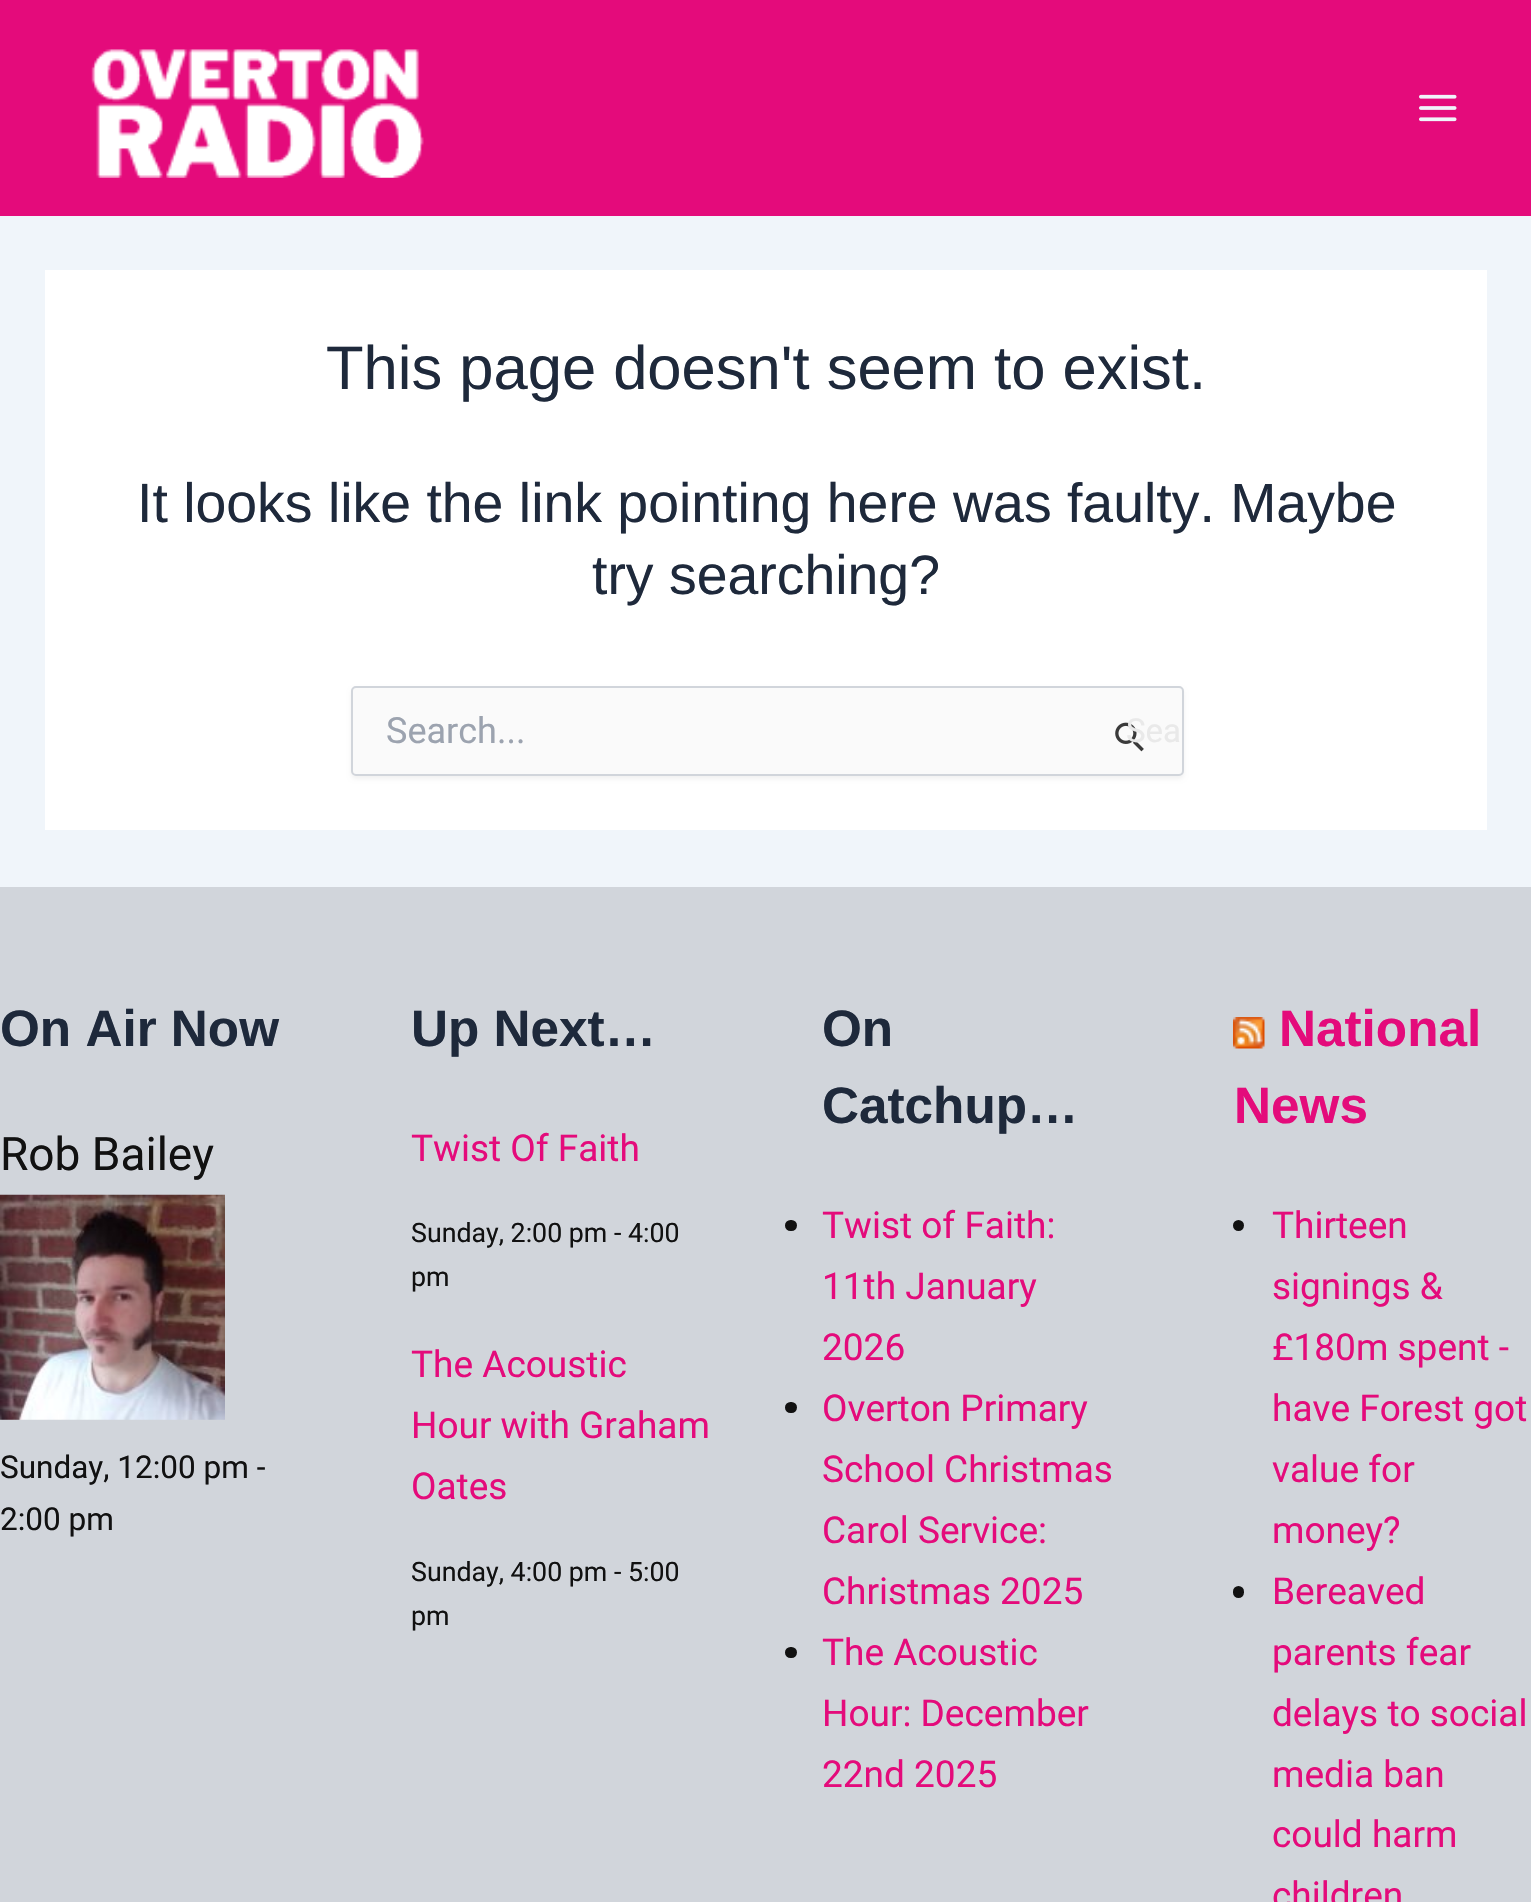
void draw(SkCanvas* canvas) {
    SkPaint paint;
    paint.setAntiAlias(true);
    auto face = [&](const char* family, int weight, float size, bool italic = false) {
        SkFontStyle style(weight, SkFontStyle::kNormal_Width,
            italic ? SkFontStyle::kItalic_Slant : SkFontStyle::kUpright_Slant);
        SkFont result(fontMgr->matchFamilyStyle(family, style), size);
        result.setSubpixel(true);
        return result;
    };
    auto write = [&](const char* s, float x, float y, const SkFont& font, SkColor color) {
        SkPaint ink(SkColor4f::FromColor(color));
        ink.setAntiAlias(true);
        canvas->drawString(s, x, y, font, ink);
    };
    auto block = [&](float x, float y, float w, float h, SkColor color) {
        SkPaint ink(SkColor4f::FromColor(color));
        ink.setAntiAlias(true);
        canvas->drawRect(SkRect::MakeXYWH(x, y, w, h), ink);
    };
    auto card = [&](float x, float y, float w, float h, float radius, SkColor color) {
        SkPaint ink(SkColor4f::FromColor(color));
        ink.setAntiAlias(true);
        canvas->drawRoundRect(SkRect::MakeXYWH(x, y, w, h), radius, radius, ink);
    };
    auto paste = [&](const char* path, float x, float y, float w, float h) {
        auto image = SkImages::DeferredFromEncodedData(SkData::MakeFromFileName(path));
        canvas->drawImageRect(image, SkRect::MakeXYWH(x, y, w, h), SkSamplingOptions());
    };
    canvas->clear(SkColorSetRGB(240, 245, 250));
    block(0, 0, 1531, 216, SkColorSetRGB(228, 11, 123));
    paste("pic1.png", 91, 49, 333, 129);
    paste("pic2.png", 1419, 94, 38, 28);
    block(45, 270, 1442, 560, SK_ColorWHITE);
    auto kFont1 = face("Liberation Sans", 400, 61.5f);
    write("This page doesn't seem to exist.", 326, 389, kFont1, SkColorSetRGB(30, 41, 59));
    auto kFont2 = face("Liberation Sans", 400, 55.4f);
    write("It looks like the link pointing here was faulty. Maybe", 137, 522, kFont2, SkColorSetRGB(30, 41, 59));
    write("try searching?", 592, 594, kFont2, SkColorSetRGB(30, 41, 59));
    paint.setColor(SkColorSetARGB(13, 0, 0, 0));
    paint.setMaskFilter(SkMaskFilter::MakeBlur(kNormal_SkBlurStyle, 2));
    canvas->drawRoundRect(SkRect::MakeXYWH(351, 689, 833, 90), 5, 5, paint);
    paint.setMaskFilter(nullptr);
    paint.setColor(SkColorSetRGB(250, 250, 250));
    canvas->drawRoundRect(SkRect::MakeXYWH(352, 687, 831, 88), 4, 4, paint);
    paint.setStyle(SkPaint::kStroke_Style);
    paint.setStrokeWidth(2);
    paint.setColor(SkColorSetRGB(209, 213, 219));
    canvas->drawRoundRect(SkRect::MakeXYWH(352, 687, 831, 88), 4, 4, paint);
    auto kFont3 = face("Roboto", 400, 36);
    write("Search...", 386, 743, kFont3, SkColorSetRGB(156, 163, 175));
    paste("pic3.png", 1115, 722, 29, 30);
    auto kFont4 = face("Roboto", 400, 33);
    write("Sea", 1126, 742, kFont4, SkColorSetRGB(233, 233, 233));
    block(0, 887, 1531, 1015, SkColorSetRGB(209, 213, 219));
    auto kFont5 = face("Liberation Sans", 700, 51.25f);
    write("On Air Now", 0, 1046, kFont5, SkColorSetRGB(30, 41, 59));
    auto kFont6 = face("Roboto", 400, 46);
    write("Rob Bailey", 0, 1170, kFont6, SkColorSetRGB(17, 17, 17));
    paste("pic4.png", 0, 1194, 225, 226);
    auto kFont7 = face("Roboto", 400, 31.5f);
    write("Sunday, 12:00 pm -", 0, 1478, kFont7, SkColorSetRGB(17, 17, 17));
    write("2:00 pm", 0, 1530, kFont7, SkColorSetRGB(17, 17, 17));
    write("Up Next…", 411, 1046, kFont5, SkColorSetRGB(30, 41, 59));
    auto kFont8 = face("Roboto", 400, 37);
    write("Twist Of Faith", 411, 1161, kFont8, SkColorSetRGB(228, 11, 123));
    auto kFont9 = face("Roboto", 400, 26.75f);
    write("Sunday, 2:00 pm - 4:00", 411, 1242, kFont9, SkColorSetRGB(17, 17, 17));
    write("pm", 411, 1286, kFont9, SkColorSetRGB(17, 17, 17));
    write("The Acoustic", 411, 1377, kFont8, SkColorSetRGB(228, 11, 123));
    write("Hour with Graham", 411, 1438, kFont8, SkColorSetRGB(228, 11, 123));
    write("Oates", 411, 1499, kFont8, SkColorSetRGB(228, 11, 123));
    write("Sunday, 4:00 pm - 5:00", 411, 1581, kFont9, SkColorSetRGB(17, 17, 17));
    write("pm", 411, 1625, kFont9, SkColorSetRGB(17, 17, 17));
    write("On", 822, 1046, kFont5, SkColorSetRGB(30, 41, 59));
    write("Catchup…", 822, 1123, kFont5, SkColorSetRGB(30, 41, 59));
    card(785, 1220, 12, 11, 5.5f, SkColorSetRGB(17, 17, 17));
    write("Twist of Faith:", 822, 1238, kFont8, SkColorSetRGB(228, 11, 123));
    write("11th January", 822, 1299, kFont8, SkColorSetRGB(228, 11, 123));
    write("2026", 822, 1360, kFont8, SkColorSetRGB(228, 11, 123));
    card(785, 1402, 12, 11, 5.5f, SkColorSetRGB(17, 17, 17));
    write("Overton Primary", 822, 1421, kFont8, SkColorSetRGB(228, 11, 123));
    write("School Christmas", 822, 1482, kFont8, SkColorSetRGB(228, 11, 123));
    write("Carol Service:", 822, 1543, kFont8, SkColorSetRGB(228, 11, 123));
    write("Christmas 2025", 822, 1604, kFont8, SkColorSetRGB(228, 11, 123));
    card(785, 1647, 12, 11, 5.5f, SkColorSetRGB(17, 17, 17));
    write("The Acoustic", 822, 1665, kFont8, SkColorSetRGB(228, 11, 123));
    write("Hour: December", 822, 1726, kFont8, SkColorSetRGB(228, 11, 123));
    write("22nd 2025", 822, 1787, kFont8, SkColorSetRGB(228, 11, 123));
    paste("pic5.png", 1233, 1017, 32, 32);
    write("National", 1279, 1046, kFont5, SkColorSetRGB(228, 11, 123));
    write("News", 1234, 1123, kFont5, SkColorSetRGB(228, 11, 123));
    paint.setStyle(SkPaint::kFill_Style);
    paint.setColor(SkColorSetRGB(17, 17, 17));
    canvas->drawCircle(1238.5f, 1225.5f, 5.5f, paint);
    write("Thirteen", 1272, 1238, kFont8, SkColorSetRGB(228, 11, 123));
    write("signings &", 1272, 1299, kFont8, SkColorSetRGB(228, 11, 123));
    write("£180m spent -", 1272, 1360, kFont8, SkColorSetRGB(228, 11, 123));
    write("have Forest got", 1272, 1421, kFont8, SkColorSetRGB(228, 11, 123));
    write("value for", 1272, 1482, kFont8, SkColorSetRGB(228, 11, 123));
    write("money?", 1272, 1543, kFont8, SkColorSetRGB(228, 11, 123));
    card(1233, 1586, 11, 12, 5.5f, SkColorSetRGB(17, 17, 17));
    write("Bereaved", 1272, 1604, kFont8, SkColorSetRGB(228, 11, 123));
    write("parents fear", 1272, 1665, kFont8, SkColorSetRGB(228, 11, 123));
    write("delays to social", 1272, 1726, kFont8, SkColorSetRGB(228, 11, 123));
    write("media ban", 1272, 1787, kFont8, SkColorSetRGB(228, 11, 123));
    write("could harm", 1272, 1847, kFont8, SkColorSetRGB(228, 11, 123));
    write("children", 1272, 1908, kFont8, SkColorSetRGB(228, 11, 123));
}
